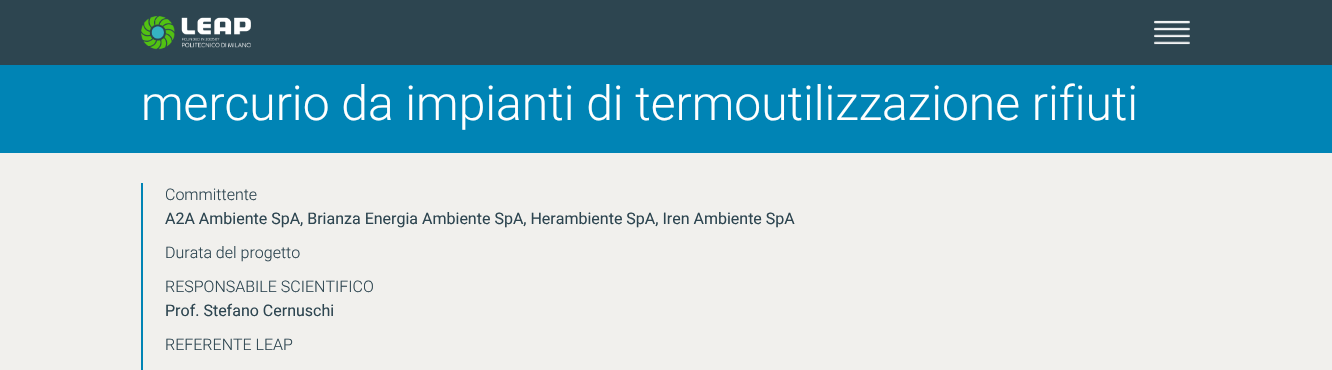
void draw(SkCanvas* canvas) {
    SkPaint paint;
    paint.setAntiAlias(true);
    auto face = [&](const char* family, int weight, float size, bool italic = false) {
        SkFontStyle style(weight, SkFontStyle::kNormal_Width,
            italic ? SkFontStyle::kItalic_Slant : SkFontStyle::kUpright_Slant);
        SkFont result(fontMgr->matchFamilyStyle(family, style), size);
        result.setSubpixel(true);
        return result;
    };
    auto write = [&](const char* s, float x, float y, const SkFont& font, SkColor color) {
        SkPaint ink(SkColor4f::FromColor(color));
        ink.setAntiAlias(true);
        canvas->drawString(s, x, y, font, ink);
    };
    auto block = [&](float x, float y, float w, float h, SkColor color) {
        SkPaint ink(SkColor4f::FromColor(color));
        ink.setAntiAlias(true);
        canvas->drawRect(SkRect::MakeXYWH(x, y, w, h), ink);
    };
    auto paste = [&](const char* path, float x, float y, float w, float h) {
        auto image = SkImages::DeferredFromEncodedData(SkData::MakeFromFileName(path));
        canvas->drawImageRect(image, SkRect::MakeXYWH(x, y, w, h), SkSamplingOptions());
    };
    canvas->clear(SkColorSetRGB(241, 240, 237));
    block(0, 0, 1332, 65, SkColorSetRGB(45, 69, 80));
    paste("pic1.png", 141, 16, 110, 34);
    paste("pic2.png", 1154, 20, 36, 25);
    block(0, 65, 1332, 88, SkColorSetRGB(0, 132, 181));
    auto kFont1 = face("Roboto", 300, 48);
    write("mercurio da impianti di termoutilizzazione rifiuti", 141, 120, kFont1, SK_ColorWHITE);
    block(141, 183, 2, 187, SkColorSetRGB(0, 132, 181));
    auto kFont2 = face("Roboto", 300, 16);
    write("Committente", 165, 200, kFont2, SkColorSetRGB(45, 69, 80));
    auto kFont3 = face("Roboto", 400, 16);
    write("A2A Ambiente SpA, Brianza Energia Ambiente SpA, Herambiente SpA, Iren Ambiente SpA", 165, 224, kFont3, SkColorSetRGB(45, 69, 80));
    write("Durata del progetto", 165, 258, kFont2, SkColorSetRGB(45, 69, 80));
    write("RESPONSABILE SCIENTIFICO", 165, 292, kFont2, SkColorSetRGB(45, 69, 80));
    write("Prof. Stefano Cernuschi", 165, 316, kFont3, SkColorSetRGB(45, 69, 80));
    write("REFERENTE LEAP", 165, 350, kFont2, SkColorSetRGB(45, 69, 80));
}
